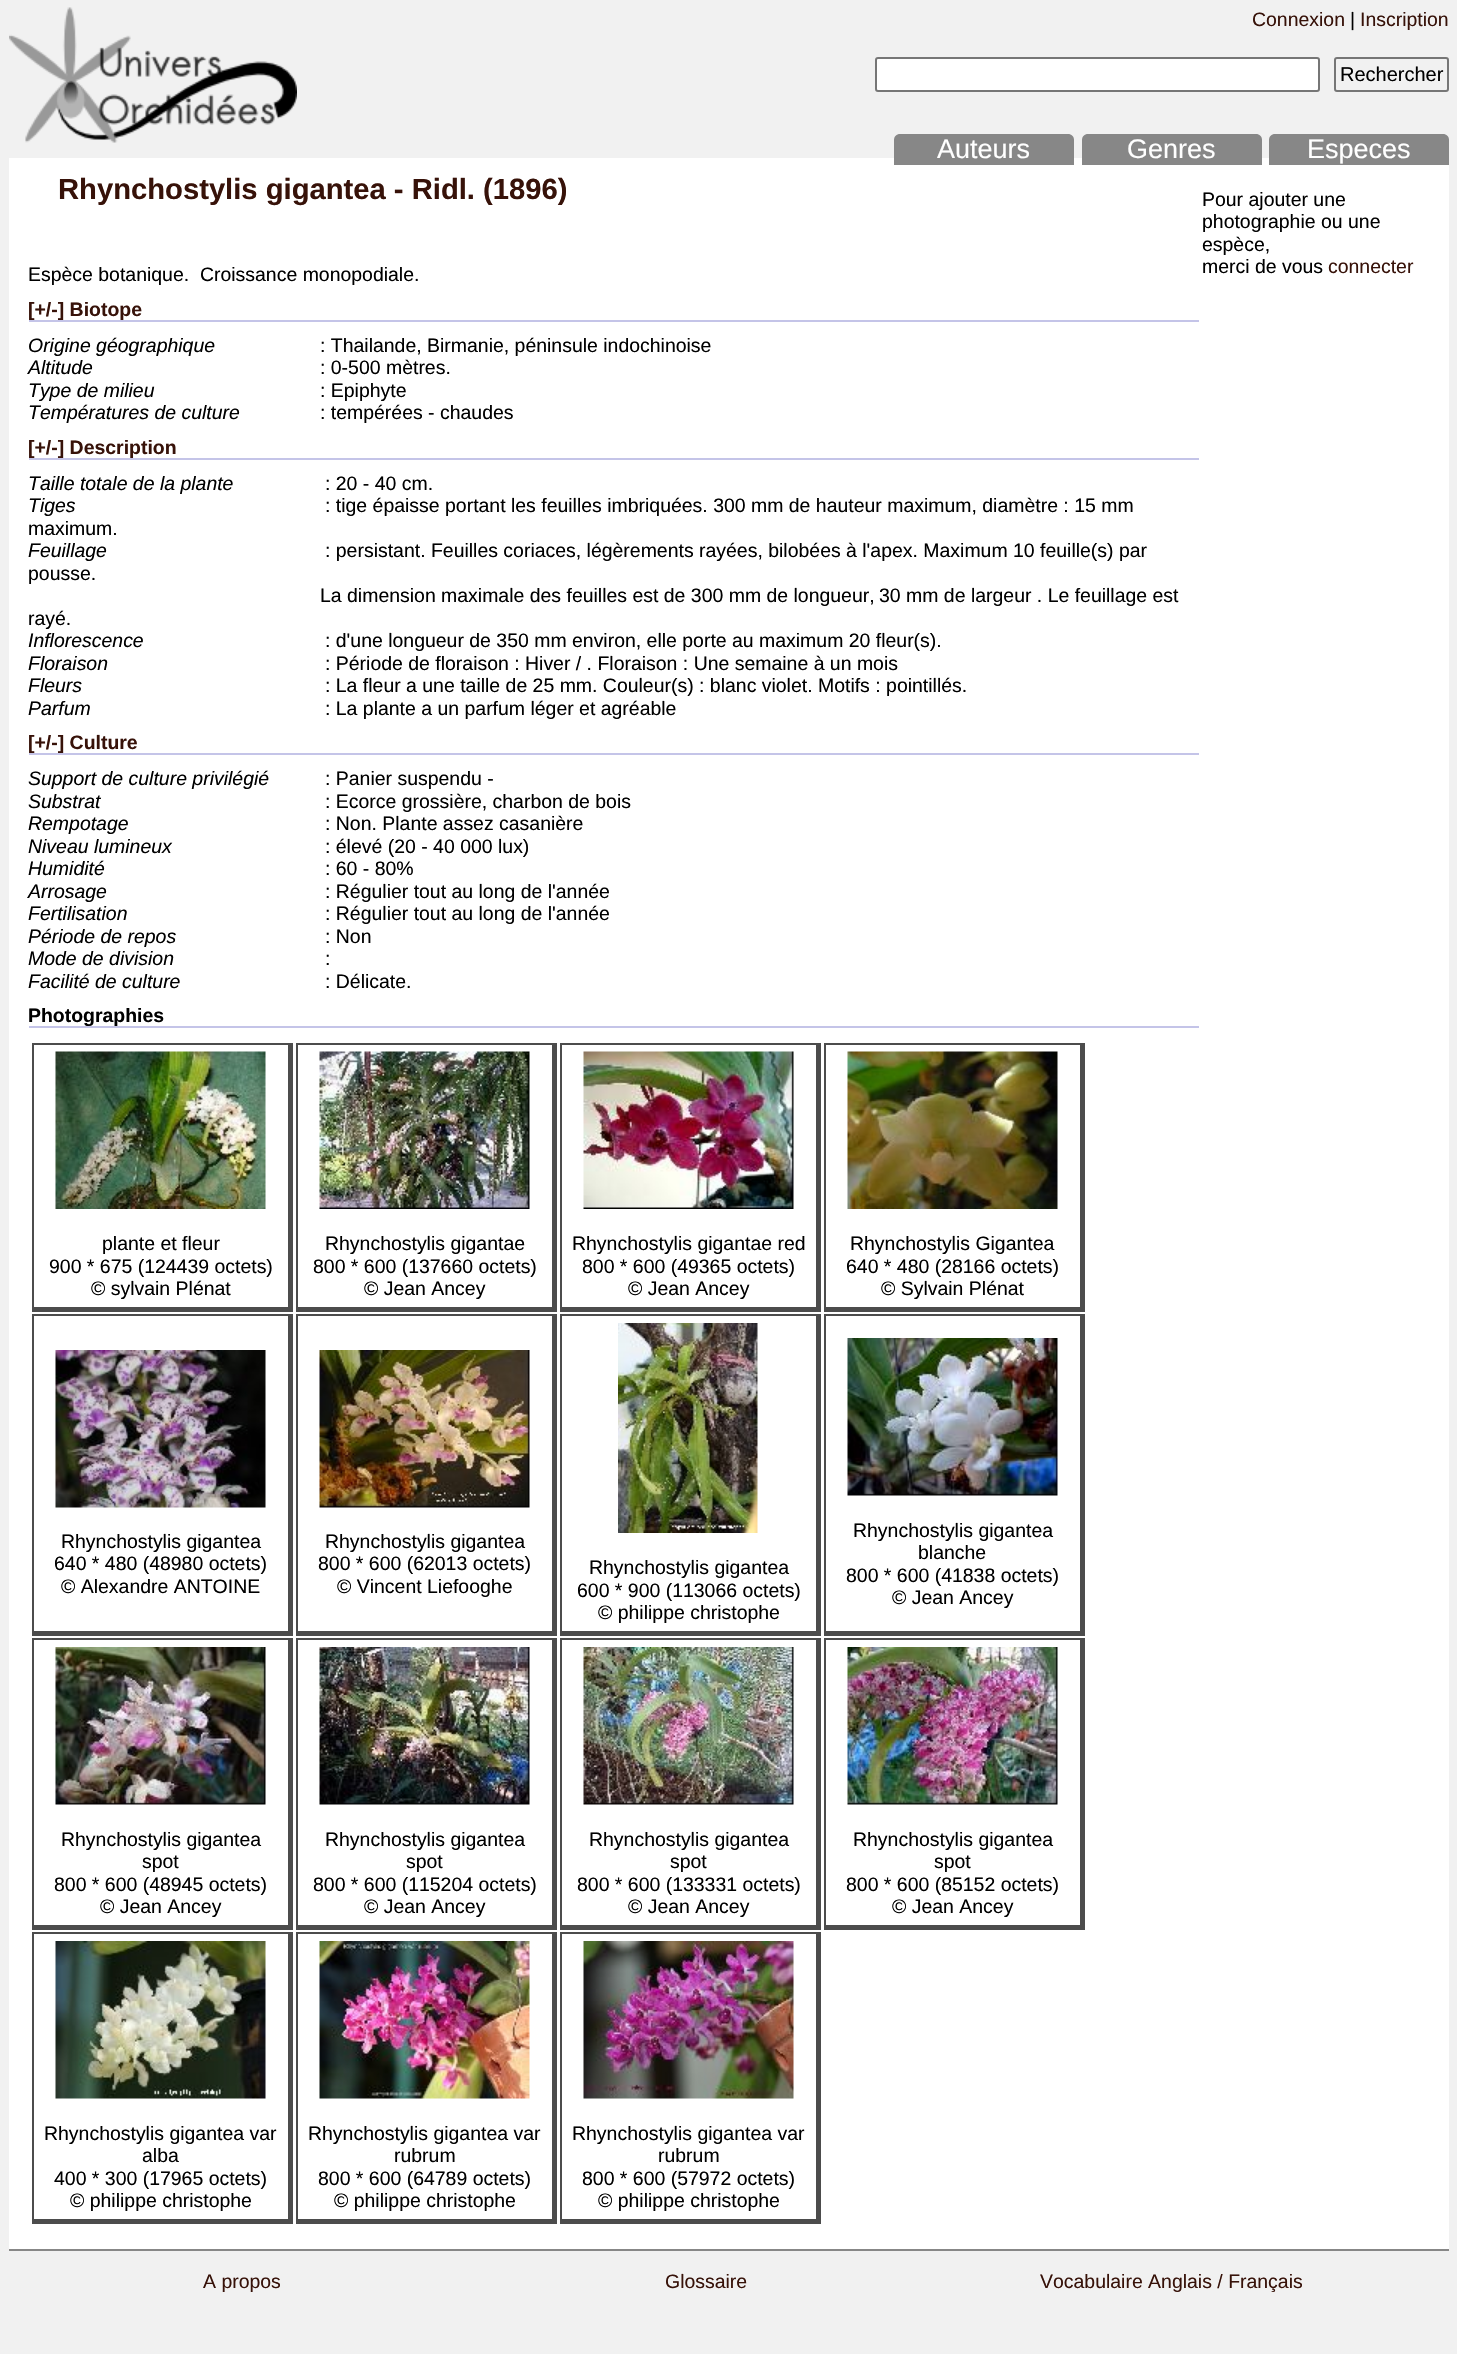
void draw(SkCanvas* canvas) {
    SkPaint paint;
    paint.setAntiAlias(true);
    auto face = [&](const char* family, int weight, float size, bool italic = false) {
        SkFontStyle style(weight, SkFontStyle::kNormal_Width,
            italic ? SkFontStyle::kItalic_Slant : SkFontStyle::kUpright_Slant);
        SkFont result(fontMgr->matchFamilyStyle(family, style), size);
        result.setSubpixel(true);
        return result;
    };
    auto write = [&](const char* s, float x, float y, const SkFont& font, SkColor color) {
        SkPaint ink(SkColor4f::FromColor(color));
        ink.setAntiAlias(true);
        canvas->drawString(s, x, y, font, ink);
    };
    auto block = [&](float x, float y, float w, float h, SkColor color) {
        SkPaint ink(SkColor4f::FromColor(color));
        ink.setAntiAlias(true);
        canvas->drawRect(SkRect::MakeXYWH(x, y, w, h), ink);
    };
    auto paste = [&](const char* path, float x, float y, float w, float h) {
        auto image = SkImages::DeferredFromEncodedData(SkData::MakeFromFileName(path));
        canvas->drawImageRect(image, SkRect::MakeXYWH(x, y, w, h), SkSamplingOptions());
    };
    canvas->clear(SkColorSetRGB(241, 241, 241));
    paste("pic1.png", 9, 7, 288, 136);
    auto kFont1 = face("Liberation Sans", 400, 19.45f);
    write("Connexion", 1252, 26, kFont1, SkColorSetRGB(55, 18, 9));
    write("|", 1350, 26, kFont1, SK_ColorBLACK);
    write("Inscription", 1360, 26, kFont1, SkColorSetRGB(55, 18, 9));
    paint.setColor(SK_ColorWHITE);
    canvas->drawRoundRect(SkRect::MakeXYWH(876, 58, 443, 33), 2, 2, paint);
    paint.setStyle(SkPaint::kStroke_Style);
    paint.setStrokeWidth(2);
    paint.setColor(SkColorSetRGB(118, 118, 118));
    canvas->drawRoundRect(SkRect::MakeXYWH(876, 58, 443, 33), 2, 2, paint);
    canvas->drawRoundRect(SkRect::MakeXYWH(1335, 58, 113, 33), 2, 2, paint);
    auto kFont2 = face("Liberation Sans", 400, 20);
    write("Rechercher", 1340, 81, kFont2, SK_ColorBLACK);
    block(9, 158, 1440, 2091, SK_ColorWHITE);
    paint.setStyle(SkPaint::kFill_Style);
    paint.setColor(SkColorSetRGB(135, 135, 135));
    canvas->drawPath(SkPathBuilder().moveTo(900, 134).lineTo(1068, 134).cubicTo(1071.5f, 134, 1074, 136.5f, 1074, 140).lineTo(1074, 165).lineTo(894, 165).lineTo(894, 140).cubicTo(894, 136.5f, 896.5f, 134, 900, 134).close().detach(), paint);
    auto kFont3 = face("Liberation Sans", 400, 27);
    write("Auteurs", 937, 158, kFont3, SK_ColorWHITE);
    canvas->drawPath(SkPathBuilder().moveTo(1088, 134).lineTo(1256, 134).cubicTo(1259.5f, 134, 1262, 136.5f, 1262, 140).lineTo(1262, 165).lineTo(1082, 165).lineTo(1082, 140).cubicTo(1082, 136.5f, 1084.5f, 134, 1088, 134).close().detach(), paint);
    write("Genres", 1127, 158, kFont3, SK_ColorWHITE);
    canvas->drawPath(SkPathBuilder().moveTo(1275, 134).lineTo(1443, 134).cubicTo(1446.5f, 134, 1449, 136.5f, 1449, 140).lineTo(1449, 165).lineTo(1269, 165).lineTo(1269, 140).cubicTo(1269, 136.5f, 1271.5f, 134, 1275, 134).close().detach(), paint);
    write("Especes", 1307, 158, kFont3, SK_ColorWHITE);
    auto kFont4 = face("Liberation Sans", 700, 29.2f);
    write("Rhynchostylis gigantea - Ridl. (1896)", 58, 199, kFont4, SkColorSetRGB(55, 18, 9));
    write("Espèce botanique.  Croissance monopodiale.", 28, 281, kFont1, SK_ColorBLACK);
    block(29, 320, 1170, 2, SkColorSetRGB(196, 196, 232));
    auto kFont5 = face("Liberation Sans", 700, 19.45f);
    write("[+/-] Biotope", 28, 316, kFont5, SkColorSetRGB(55, 18, 9));
    auto kFont6 = face("Liberation Sans", 400, 19.45f, true);
    write("Origine géographique", 28, 352, kFont6, SK_ColorBLACK);
    write(": Thailande, Birmanie, péninsule indochinoise", 320, 352, kFont1, SK_ColorBLACK);
    write("Altitude", 28, 374, kFont6, SK_ColorBLACK);
    write(": 0-500 mètres.", 320, 374, kFont1, SK_ColorBLACK);
    write("Type de milieu", 28, 397, kFont6, SK_ColorBLACK);
    write(": Epiphyte", 320, 397, kFont1, SK_ColorBLACK);
    write("Températures de culture", 28, 419, kFont6, SK_ColorBLACK);
    write(": tempérées - chaudes", 320, 419, kFont1, SK_ColorBLACK);
    block(29, 458, 1170, 2, SkColorSetRGB(196, 196, 232));
    write("[+/-] Description", 28, 454, kFont5, SkColorSetRGB(55, 18, 9));
    write("Taille totale de la plante", 28, 490, kFont6, SK_ColorBLACK);
    write(": 20 - 40 cm.", 325, 490, kFont1, SK_ColorBLACK);
    write("Tiges", 28, 512, kFont6, SK_ColorBLACK);
    write(": tige épaisse portant les feuilles imbriquées. 300 mm de hauteur maximum, diamètre : 15 mm", 325, 512, kFont1, SK_ColorBLACK);
    write("maximum.", 28, 535, kFont1, SK_ColorBLACK);
    write("Feuillage", 28, 557, kFont6, SK_ColorBLACK);
    write(": persistant. Feuilles coriaces, légèrements rayées, bilobées à l'apex. Maximum 10 feuille(s) par", 325, 557, kFont1, SK_ColorBLACK);
    write("pousse.", 28, 580, kFont1, SK_ColorBLACK);
    write("La dimension maximale des feuilles est de 300 mm de longueur,", 320, 602, kFont1, SK_ColorBLACK);
    write("30 mm de largeur . Le feuillage est", 879, 602, kFont1, SK_ColorBLACK);
    write("rayé.", 28, 625, kFont1, SK_ColorBLACK);
    write("Inflorescence", 28, 647, kFont6, SK_ColorBLACK);
    write(": d'une longueur de 350 mm environ, elle porte au maximum 20 fleur(s).", 325, 647, kFont1, SK_ColorBLACK);
    write("Floraison", 28, 670, kFont6, SK_ColorBLACK);
    write(": Période de floraison : Hiver / . Floraison : Une semaine à un mois", 325, 670, kFont1, SK_ColorBLACK);
    write("Fleurs", 28, 692, kFont6, SK_ColorBLACK);
    write(": La fleur a une taille de 25 mm. Couleur(s) : blanc violet. Motifs : pointillés.", 325, 692, kFont1, SK_ColorBLACK);
    write("Parfum", 28, 715, kFont6, SK_ColorBLACK);
    write(": La plante a un parfum léger et agréable", 325, 715, kFont1, SK_ColorBLACK);
    block(29, 753, 1170, 2, SkColorSetRGB(196, 196, 232));
    write("[+/-] Culture", 28, 749, kFont5, SkColorSetRGB(55, 18, 9));
    write("Support de culture privilégié", 28, 785, kFont6, SK_ColorBLACK);
    write(": Panier suspendu -", 325, 785, kFont1, SK_ColorBLACK);
    write("Substrat", 28, 808, kFont6, SK_ColorBLACK);
    write(": Ecorce grossière, charbon de bois", 325, 808, kFont1, SK_ColorBLACK);
    write("Rempotage", 28, 830, kFont6, SK_ColorBLACK);
    write(": Non. Plante assez casanière", 325, 830, kFont1, SK_ColorBLACK);
    write("Niveau lumineux", 28, 853, kFont6, SK_ColorBLACK);
    write(": élevé (20 - 40 000 lux)", 325, 853, kFont1, SK_ColorBLACK);
    write("Humidité", 28, 875, kFont6, SK_ColorBLACK);
    write(": 60 - 80%", 325, 875, kFont1, SK_ColorBLACK);
    write("Arrosage", 28, 898, kFont6, SK_ColorBLACK);
    write(": Régulier tout au long de l'année", 325, 898, kFont1, SK_ColorBLACK);
    write("Fertilisation", 28, 920, kFont6, SK_ColorBLACK);
    write(": Régulier tout au long de l'année", 325, 920, kFont1, SK_ColorBLACK);
    write("Période de repos", 28, 943, kFont6, SK_ColorBLACK);
    write(": Non", 325, 943, kFont1, SK_ColorBLACK);
    write("Mode de division", 28, 965, kFont6, SK_ColorBLACK);
    write(":", 325, 965, kFont1, SK_ColorBLACK);
    write("Facilité de culture", 28, 988, kFont6, SK_ColorBLACK);
    write(": Délicate.", 325, 988, kFont1, SK_ColorBLACK);
    block(29, 1026, 1170, 2, SkColorSetRGB(196, 196, 232));
    write("Photographies", 28, 1022, kFont5, SK_ColorBLACK);
    block(32, 1043, 261, 2, SkColorSetRGB(76, 76, 76));
    block(288, 1043, 5, 268, SkColorSetRGB(76, 76, 76));
    block(32, 1307, 261, 5, SkColorSetRGB(76, 76, 76));
    block(32, 1043, 2, 268, SkColorSetRGB(76, 76, 76));
    paste("pic2.png", 55, 1051, 211, 158);
    write("plante et fleur", 102, 1250, kFont1, SK_ColorBLACK);
    write("900 * 675 (124439 octets)", 49, 1273, kFont1, SK_ColorBLACK);
    write("© sylvain Plénat", 91, 1295, kFont1, SK_ColorBLACK);
    block(296, 1043, 261, 2, SkColorSetRGB(76, 76, 76));
    block(552, 1043, 5, 268, SkColorSetRGB(76, 76, 76));
    block(296, 1307, 261, 5, SkColorSetRGB(76, 76, 76));
    block(296, 1043, 2, 268, SkColorSetRGB(76, 76, 76));
    paste("pic3.png", 319, 1051, 211, 158);
    write("Rhynchostylis gigantae", 325, 1250, kFont1, SK_ColorBLACK);
    write("800 * 600 (137660 octets)", 313, 1273, kFont1, SK_ColorBLACK);
    write("© Jean Ancey", 364, 1295, kFont1, SK_ColorBLACK);
    block(560, 1043, 261, 2, SkColorSetRGB(76, 76, 76));
    block(816, 1043, 5, 268, SkColorSetRGB(76, 76, 76));
    block(560, 1307, 261, 5, SkColorSetRGB(76, 76, 76));
    block(560, 1043, 2, 268, SkColorSetRGB(76, 76, 76));
    paste("pic4.png", 583, 1051, 211, 158);
    write("Rhynchostylis gigantae red", 572, 1250, kFont1, SK_ColorBLACK);
    write("800 * 600 (49365 octets)", 582, 1273, kFont1, SK_ColorBLACK);
    write("© Jean Ancey", 628, 1295, kFont1, SK_ColorBLACK);
    block(824, 1043, 261, 2, SkColorSetRGB(76, 76, 76));
    block(1080, 1043, 5, 268, SkColorSetRGB(76, 76, 76));
    block(824, 1307, 261, 5, SkColorSetRGB(76, 76, 76));
    block(824, 1043, 2, 268, SkColorSetRGB(76, 76, 76));
    paste("pic5.png", 847, 1051, 211, 158);
    write("Rhynchostylis Gigantea", 850, 1250, kFont1, SK_ColorBLACK);
    write("640 * 480 (28166 octets)", 846, 1273, kFont1, SK_ColorBLACK);
    write("© Sylvain Plénat", 881, 1295, kFont1, SK_ColorBLACK);
    block(32, 1314, 261, 2, SkColorSetRGB(76, 76, 76));
    block(288, 1314, 5, 321, SkColorSetRGB(76, 76, 76));
    block(32, 1631, 261, 5, SkColorSetRGB(76, 76, 76));
    block(32, 1314, 2, 321, SkColorSetRGB(76, 76, 76));
    paste("pic6.png", 55, 1350, 211, 158);
    write("Rhynchostylis gigantea", 61, 1548, kFont1, SK_ColorBLACK);
    write("640 * 480 (48980 octets)", 54, 1570, kFont1, SK_ColorBLACK);
    write("© Alexandre ANTOINE", 61, 1593, kFont1, SK_ColorBLACK);
    block(296, 1314, 261, 2, SkColorSetRGB(76, 76, 76));
    block(552, 1314, 5, 321, SkColorSetRGB(76, 76, 76));
    block(296, 1631, 261, 5, SkColorSetRGB(76, 76, 76));
    block(296, 1314, 2, 321, SkColorSetRGB(76, 76, 76));
    paste("pic7.png", 319, 1350, 211, 158);
    write("Rhynchostylis gigantea", 325, 1548, kFont1, SK_ColorBLACK);
    write("800 * 600 (62013 octets)", 318, 1570, kFont1, SK_ColorBLACK);
    write("© Vincent Liefooghe", 337, 1593, kFont1, SK_ColorBLACK);
    block(560, 1314, 261, 2, SkColorSetRGB(76, 76, 76));
    block(816, 1314, 5, 321, SkColorSetRGB(76, 76, 76));
    block(560, 1631, 261, 5, SkColorSetRGB(76, 76, 76));
    block(560, 1314, 2, 321, SkColorSetRGB(76, 76, 76));
    paste("pic8.png", 618, 1323, 140, 210);
    write("Rhynchostylis gigantea", 589, 1574, kFont1, SK_ColorBLACK);
    write("600 * 900 (113066 octets)", 577, 1597, kFont1, SK_ColorBLACK);
    write("© philippe christophe", 598, 1619, kFont1, SK_ColorBLACK);
    block(824, 1314, 261, 2, SkColorSetRGB(76, 76, 76));
    block(1080, 1314, 5, 321, SkColorSetRGB(76, 76, 76));
    block(824, 1631, 261, 5, SkColorSetRGB(76, 76, 76));
    block(824, 1314, 2, 321, SkColorSetRGB(76, 76, 76));
    paste("pic9.png", 847, 1338, 211, 158);
    write("Rhynchostylis gigantea", 853, 1537, kFont1, SK_ColorBLACK);
    write("blanche", 918, 1559, kFont1, SK_ColorBLACK);
    write("800 * 600 (41838 octets)", 846, 1582, kFont1, SK_ColorBLACK);
    write("© Jean Ancey", 892, 1604, kFont1, SK_ColorBLACK);
    block(32, 1638, 261, 2, SkColorSetRGB(76, 76, 76));
    block(288, 1638, 5, 291, SkColorSetRGB(76, 76, 76));
    block(32, 1925, 261, 5, SkColorSetRGB(76, 76, 76));
    block(32, 1638, 2, 291, SkColorSetRGB(76, 76, 76));
    paste("pic10.png", 55, 1647, 211, 158);
    write("Rhynchostylis gigantea", 61, 1846, kFont1, SK_ColorBLACK);
    write("spot", 142, 1868, kFont1, SK_ColorBLACK);
    write("800 * 600 (48945 octets)", 54, 1891, kFont1, SK_ColorBLACK);
    write("© Jean Ancey", 100, 1913, kFont1, SK_ColorBLACK);
    block(296, 1638, 261, 2, SkColorSetRGB(76, 76, 76));
    block(552, 1638, 5, 291, SkColorSetRGB(76, 76, 76));
    block(296, 1925, 261, 5, SkColorSetRGB(76, 76, 76));
    block(296, 1638, 2, 291, SkColorSetRGB(76, 76, 76));
    paste("pic11.png", 319, 1647, 211, 158);
    write("Rhynchostylis gigantea", 325, 1846, kFont1, SK_ColorBLACK);
    write("spot", 406, 1868, kFont1, SK_ColorBLACK);
    write("800 * 600 (115204 octets)", 313, 1891, kFont1, SK_ColorBLACK);
    write("© Jean Ancey", 364, 1913, kFont1, SK_ColorBLACK);
    block(560, 1638, 261, 2, SkColorSetRGB(76, 76, 76));
    block(816, 1638, 5, 291, SkColorSetRGB(76, 76, 76));
    block(560, 1925, 261, 5, SkColorSetRGB(76, 76, 76));
    block(560, 1638, 2, 291, SkColorSetRGB(76, 76, 76));
    paste("pic12.png", 583, 1647, 211, 158);
    write("Rhynchostylis gigantea", 589, 1846, kFont1, SK_ColorBLACK);
    write("spot", 670, 1868, kFont1, SK_ColorBLACK);
    write("800 * 600 (133331 octets)", 577, 1891, kFont1, SK_ColorBLACK);
    write("© Jean Ancey", 628, 1913, kFont1, SK_ColorBLACK);
    block(824, 1638, 261, 2, SkColorSetRGB(76, 76, 76));
    block(1080, 1638, 5, 291, SkColorSetRGB(76, 76, 76));
    block(824, 1925, 261, 5, SkColorSetRGB(76, 76, 76));
    block(824, 1638, 2, 291, SkColorSetRGB(76, 76, 76));
    paste("pic13.png", 847, 1647, 211, 158);
    write("Rhynchostylis gigantea", 853, 1846, kFont1, SK_ColorBLACK);
    write("spot", 934, 1868, kFont1, SK_ColorBLACK);
    write("800 * 600 (85152 octets)", 846, 1891, kFont1, SK_ColorBLACK);
    write("© Jean Ancey", 892, 1913, kFont1, SK_ColorBLACK);
    block(32, 1932, 261, 2, SkColorSetRGB(76, 76, 76));
    block(288, 1932, 5, 291, SkColorSetRGB(76, 76, 76));
    block(32, 2219, 261, 5, SkColorSetRGB(76, 76, 76));
    block(32, 1932, 2, 291, SkColorSetRGB(76, 76, 76));
    paste("pic14.png", 55, 1941, 211, 158);
    write("Rhynchostylis gigantea var", 44, 2140, kFont1, SK_ColorBLACK);
    write("alba", 142, 2162, kFont1, SK_ColorBLACK);
    write("400 * 300 (17965 octets)", 54, 2185, kFont1, SK_ColorBLACK);
    write("© philippe christophe", 70, 2207, kFont1, SK_ColorBLACK);
    block(296, 1932, 261, 2, SkColorSetRGB(76, 76, 76));
    block(552, 1932, 5, 291, SkColorSetRGB(76, 76, 76));
    block(296, 2219, 261, 5, SkColorSetRGB(76, 76, 76));
    block(296, 1932, 2, 291, SkColorSetRGB(76, 76, 76));
    paste("pic15.png", 319, 1941, 211, 158);
    write("Rhynchostylis gigantea var", 308, 2140, kFont1, SK_ColorBLACK);
    write("rubrum", 394, 2162, kFont1, SK_ColorBLACK);
    write("800 * 600 (64789 octets)", 318, 2185, kFont1, SK_ColorBLACK);
    write("© philippe christophe", 334, 2207, kFont1, SK_ColorBLACK);
    block(560, 1932, 261, 2, SkColorSetRGB(76, 76, 76));
    block(816, 1932, 5, 291, SkColorSetRGB(76, 76, 76));
    block(560, 2219, 261, 5, SkColorSetRGB(76, 76, 76));
    block(560, 1932, 2, 291, SkColorSetRGB(76, 76, 76));
    paste("pic16.png", 583, 1941, 211, 158);
    write("Rhynchostylis gigantea var", 572, 2140, kFont1, SK_ColorBLACK);
    write("rubrum", 658, 2162, kFont1, SK_ColorBLACK);
    write("800 * 600 (57972 octets)", 582, 2185, kFont1, SK_ColorBLACK);
    write("© philippe christophe", 598, 2207, kFont1, SK_ColorBLACK);
    write("Pour ajouter une", 1202, 206, kFont1, SK_ColorBLACK);
    write("photographie ou une", 1202, 228, kFont1, SK_ColorBLACK);
    write("espèce,", 1202, 251, kFont1, SK_ColorBLACK);
    write("merci de vous", 1202, 273, kFont1, SK_ColorBLACK);
    write("connecter", 1328, 273, kFont1, SkColorSetRGB(55, 18, 9));
    block(9, 2249, 1440, 2, SkColorSetRGB(135, 135, 135));
    write("A propos", 203, 2288, kFont1, SkColorSetRGB(55, 18, 9));
    write("Glossaire", 665, 2288, kFont1, SkColorSetRGB(55, 18, 9));
    write("Vocabulaire Anglais / Français", 1040, 2288, kFont1, SkColorSetRGB(55, 18, 9));
}
